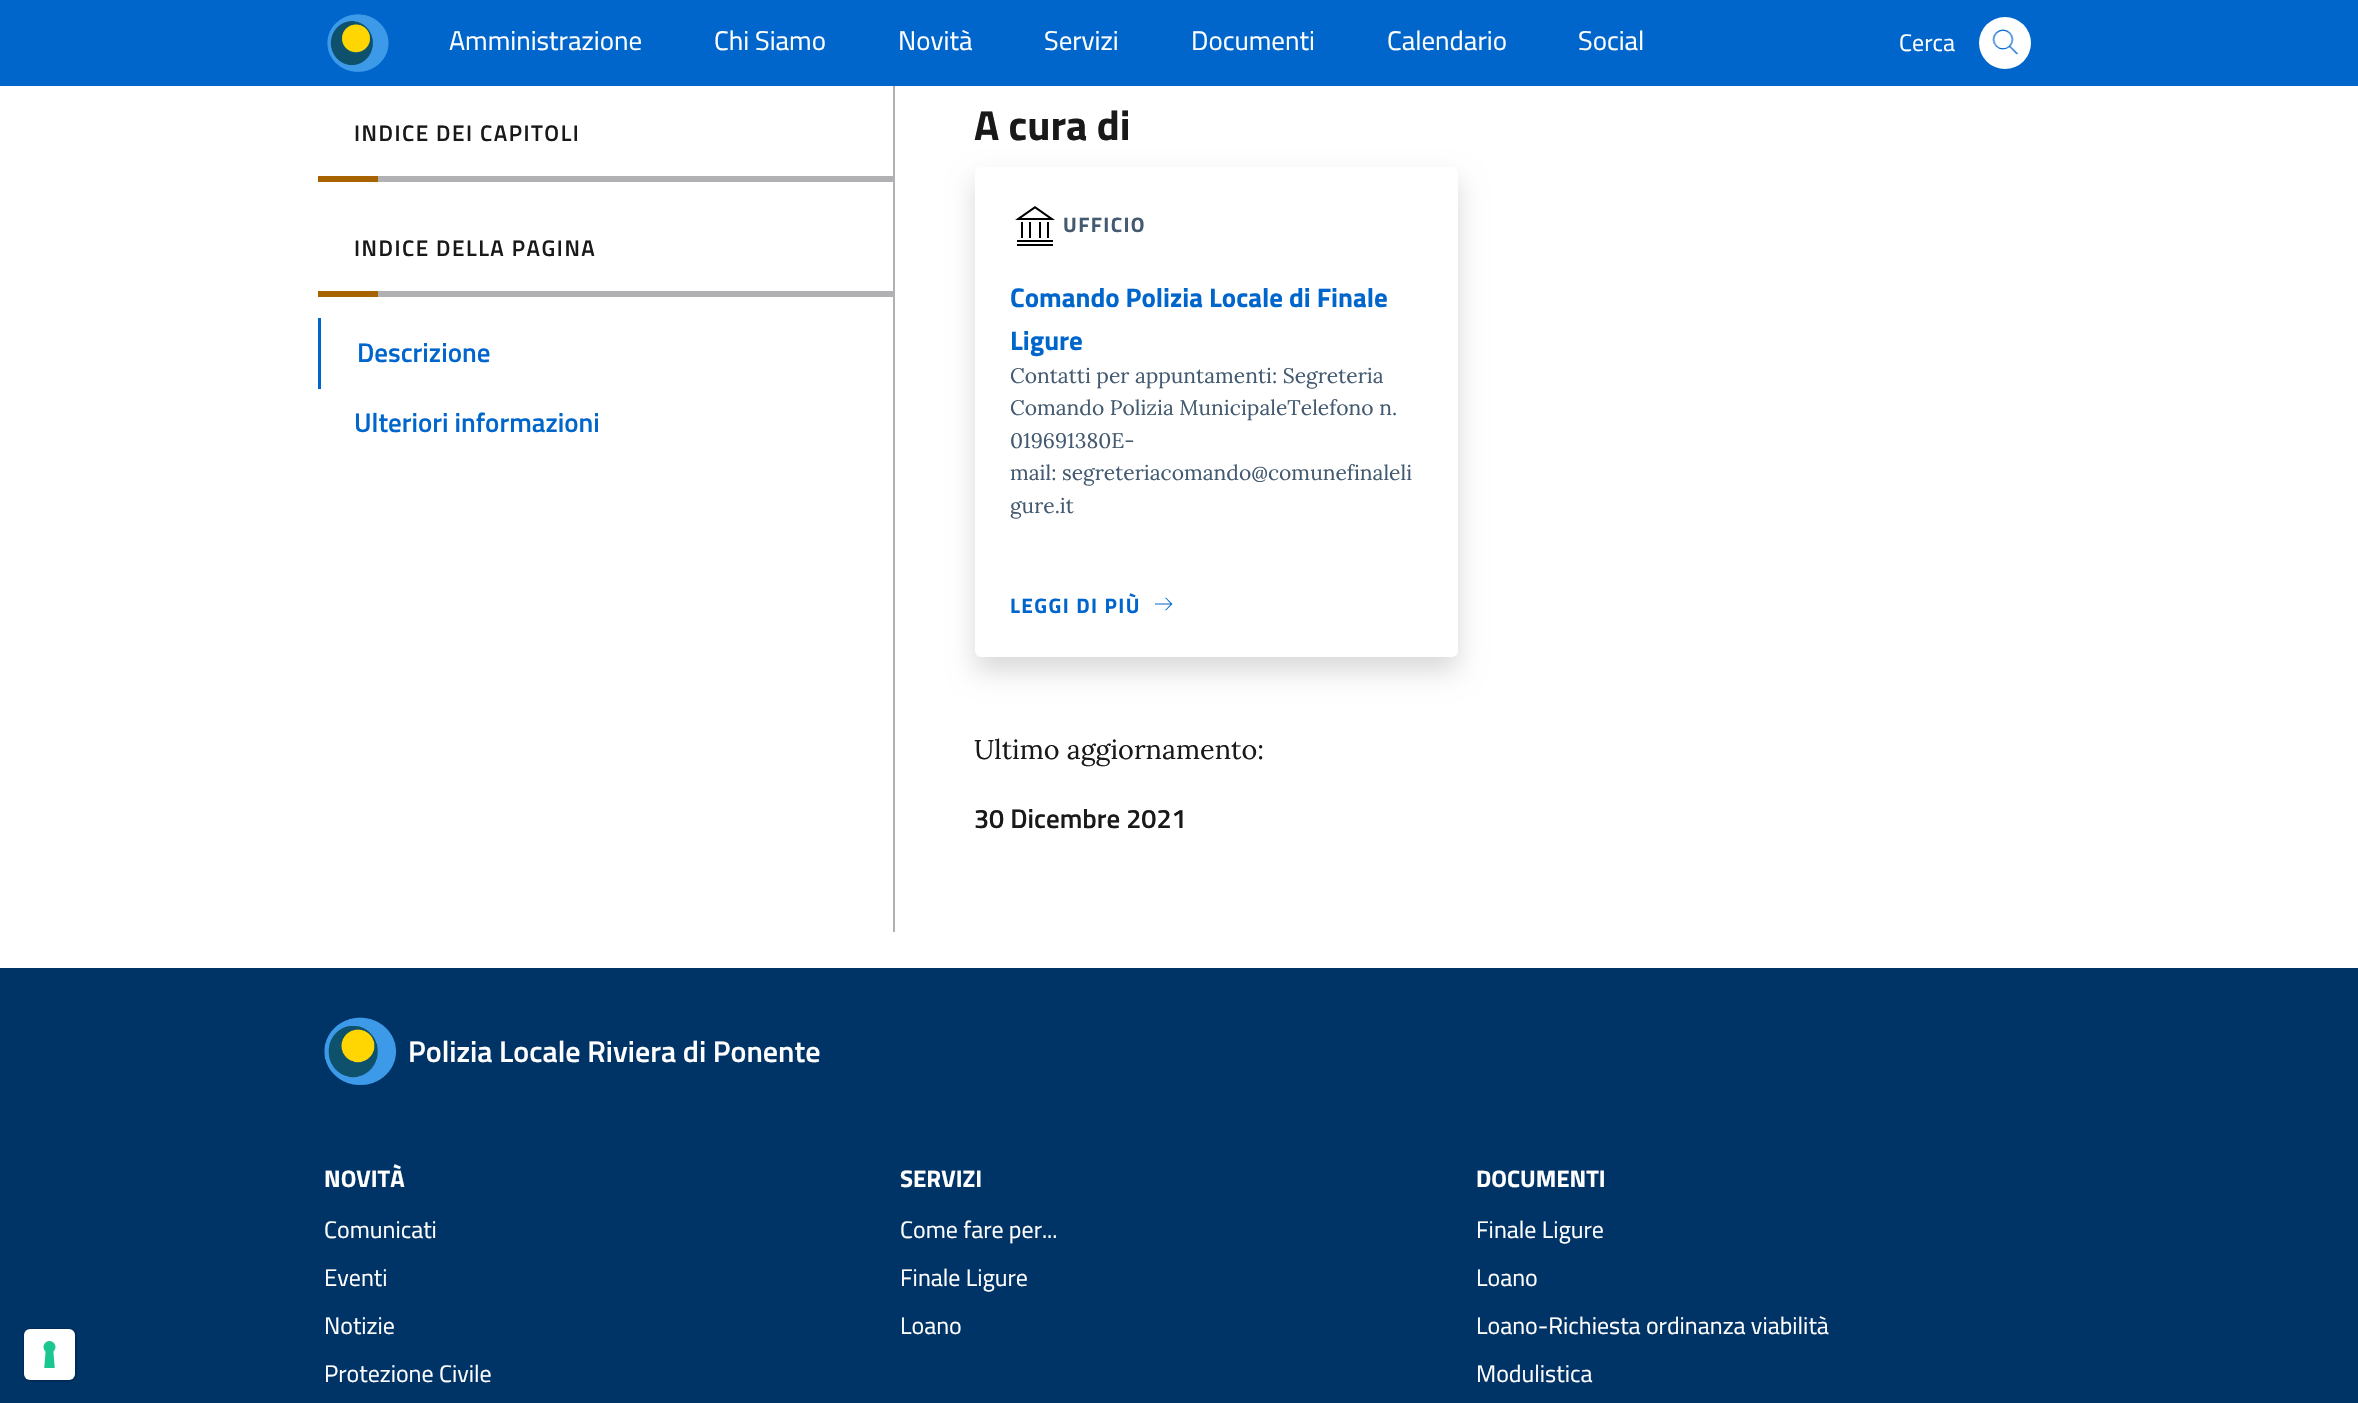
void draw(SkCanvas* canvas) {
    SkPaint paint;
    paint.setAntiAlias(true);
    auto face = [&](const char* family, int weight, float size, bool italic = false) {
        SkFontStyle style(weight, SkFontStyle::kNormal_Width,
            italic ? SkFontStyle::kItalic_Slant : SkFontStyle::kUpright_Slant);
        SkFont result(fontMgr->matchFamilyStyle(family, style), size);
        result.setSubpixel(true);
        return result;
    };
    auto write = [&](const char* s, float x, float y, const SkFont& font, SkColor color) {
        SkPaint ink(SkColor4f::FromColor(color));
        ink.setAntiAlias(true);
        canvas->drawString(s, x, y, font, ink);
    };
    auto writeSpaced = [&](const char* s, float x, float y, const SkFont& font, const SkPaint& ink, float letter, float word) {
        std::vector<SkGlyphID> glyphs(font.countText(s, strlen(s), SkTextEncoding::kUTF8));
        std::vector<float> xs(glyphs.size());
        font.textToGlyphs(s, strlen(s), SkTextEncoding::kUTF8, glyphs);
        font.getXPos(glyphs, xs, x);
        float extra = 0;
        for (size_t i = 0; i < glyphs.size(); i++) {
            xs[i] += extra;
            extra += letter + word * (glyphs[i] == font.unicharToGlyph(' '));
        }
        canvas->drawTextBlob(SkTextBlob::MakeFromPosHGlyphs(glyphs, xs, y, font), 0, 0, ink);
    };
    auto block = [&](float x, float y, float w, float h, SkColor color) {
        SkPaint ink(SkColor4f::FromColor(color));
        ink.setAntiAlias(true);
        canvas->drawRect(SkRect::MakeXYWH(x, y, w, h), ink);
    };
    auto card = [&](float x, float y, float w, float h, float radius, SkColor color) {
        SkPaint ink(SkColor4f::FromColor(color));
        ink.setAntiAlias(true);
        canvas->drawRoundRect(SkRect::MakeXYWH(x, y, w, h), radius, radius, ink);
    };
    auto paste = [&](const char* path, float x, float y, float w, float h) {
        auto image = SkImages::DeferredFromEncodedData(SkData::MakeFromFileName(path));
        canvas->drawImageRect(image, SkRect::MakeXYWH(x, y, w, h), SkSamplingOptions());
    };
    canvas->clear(SK_ColorWHITE);
    block(0, 968, 2358, 435, SkColorSetRGB(0, 51, 102));
    paint.setStyle(SkPaint::kStroke_Style);
    paint.setStrokeWidth(2);
    paint.setColor(SkColorSetRGB(0, 43, 87));
    canvas->drawRoundRect(SkRect::MakeXYWH(24, 1329, 52, 52), 7, 7, paint);
    card(24, 1329, 51, 51, 6, SK_ColorWHITE);
    paste("pic1.png", 43, 1341, 13, 27);
    block(0, 0, 2358, 86, SkColorSetRGB(0, 102, 204));
    paste("pic2.png", 327, 14, 62, 58);
    auto kFont1 = face("Titillium Web", 400, 27);
    write("Amministrazione", 449, 50, kFont1, SK_ColorWHITE);
    write("Chi Siamo", 714, 50, kFont1, SK_ColorWHITE);
    write("Novità", 898, 50, kFont1, SK_ColorWHITE);
    write("Servizi", 1044, 50, kFont1, SK_ColorWHITE);
    write("Documenti", 1191, 50, kFont1, SK_ColorWHITE);
    write("Calendario", 1387, 50, kFont1, SK_ColorWHITE);
    write("Social", 1578, 50, kFont1, SK_ColorWHITE);
    auto kFont2 = face("Titillium Web", 400, 24);
    write("Cerca", 1899, 51, kFont2, SK_ColorWHITE);
    paint.setStyle(SkPaint::kFill_Style);
    paint.setColor(SK_ColorWHITE);
    canvas->drawCircle(2005, 43, 26, paint);
    paste("pic3.png", 1992, 29, 27, 26);
    block(378, 176, 515, 6, SkColorSetRGB(177, 177, 179));
    auto kFont3 = face("Titillium Web", 600, 22.5f);
    paint.setColor(SkColorSetRGB(25, 25, 26));
    writeSpaced("INDICE DEI CAPITOLI", 354, 141, kFont3, paint, 1.5f, 0);
    block(318, 176, 60, 6, SkColorSetRGB(166, 99, 0));
    block(378, 291, 515, 6, SkColorSetRGB(177, 177, 179));
    writeSpaced("INDICE DELLA PAGINA", 354, 256, kFont3, paint, 1.5f, 0);
    block(318, 291, 60, 6, SkColorSetRGB(166, 99, 0));
    block(318, 318, 3, 71, SkColorSetRGB(0, 102, 204));
    auto kFont4 = face("Titillium Web", 600, 27);
    write("Descrizione", 357, 362, kFont4, SkColorSetRGB(0, 102, 204));
    write("Ulteriori informazioni", 354, 432, kFont4, SkColorSetRGB(0, 102, 204));
    block(893, 86, 2, 846, SkColorSetRGB(177, 177, 179));
    auto kFont5 = face("Titillium Web", 700, 42);
    write("A cura di", 974, 140, kFont5, SkColorSetRGB(25, 25, 26));
    paint.setColor(SkColorSetARGB(38, 0, 0, 0));
    paint.setMaskFilter(SkMaskFilter::MakeBlur(kNormal_SkBlurStyle, 13.5f));
    canvas->drawRoundRect(SkRect::MakeXYWH(975, 180, 483, 491), 6, 6, paint);
    paint.setMaskFilter(nullptr);
    card(975, 167, 483, 490, 6, SK_ColorWHITE);
    paste("pic4.png", 1015, 206, 40, 40);
    auto kFont6 = face("Titillium Web", 700, 21);
    paint.setColor(SkColorSetRGB(67, 90, 112));
    writeSpaced("UFFICIO", 1063, 232, kFont6, paint, 1.4f, 0);
    auto kFont7 = face("Titillium Web", 700, 27);
    write("Comando Polizia Locale di Finale", 1010, 307, kFont7, SkColorSetRGB(0, 102, 204));
    write("Ligure", 1010, 350, kFont7, SkColorSetRGB(0, 102, 204));
    auto kFont8 = face("Lora", 400, 21);
    write("Contatti per appuntamenti: Segreteria", 1010, 383, kFont8, SkColorSetRGB(67, 90, 112));
    write("Comando Polizia MunicipaleTelefono n.", 1010, 415, kFont8, SkColorSetRGB(67, 90, 112));
    write("019691380E-", 1010, 448, kFont8, SkColorSetRGB(67, 90, 112));
    write("mail: segreteriacomando@comunefinaleli", 1010, 480, kFont8, SkColorSetRGB(67, 90, 112));
    write("gure.it", 1010, 513, kFont8, SkColorSetRGB(67, 90, 112));
    paint.setColor(SkColorSetRGB(0, 102, 204));
    writeSpaced("LEGGI DI PIÙ", 1010, 613, kFont6, paint, 1.4f, 0);
    paste("pic5.png", 1155, 597, 18, 14);
    auto kFont9 = face("Lora", 400, 27);
    write("Ultimo aggiornamento:", 974, 759, kFont9, SkColorSetRGB(25, 25, 26));
    write("30 Dicembre 2021", 974, 828, kFont4, SkColorSetRGB(25, 25, 26));
    paste("pic6.png", 324, 1017, 72, 68);
    auto kFont10 = face("Titillium Web", 600, 30);
    write("Polizia Locale Riviera di Ponente", 408, 1062, kFont10, SK_ColorWHITE);
    auto kFont11 = face("Titillium Web", 700, 24);
    write("NOVITÀ", 324, 1187, kFont11, SK_ColorWHITE);
    write("Comunicati", 324, 1238, kFont2, SK_ColorWHITE);
    write("Eventi", 324, 1286, kFont2, SK_ColorWHITE);
    write("Notizie", 324, 1334, kFont2, SK_ColorWHITE);
    write("Protezione Civile", 324, 1382, kFont2, SK_ColorWHITE);
    write("SERVIZI", 900, 1187, kFont11, SK_ColorWHITE);
    write("Come fare per...", 900, 1238, kFont2, SK_ColorWHITE);
    write("Finale Ligure", 900, 1286, kFont2, SK_ColorWHITE);
    write("Loano", 900, 1334, kFont2, SK_ColorWHITE);
    write("DOCUMENTI", 1476, 1187, kFont11, SK_ColorWHITE);
    write("Finale Ligure", 1476, 1238, kFont2, SK_ColorWHITE);
    write("Loano", 1476, 1286, kFont2, SK_ColorWHITE);
    write("Loano-Richiesta ordinanza viabilità", 1476, 1334, kFont2, SK_ColorWHITE);
    write("Modulistica", 1476, 1382, kFont2, SK_ColorWHITE);
}
